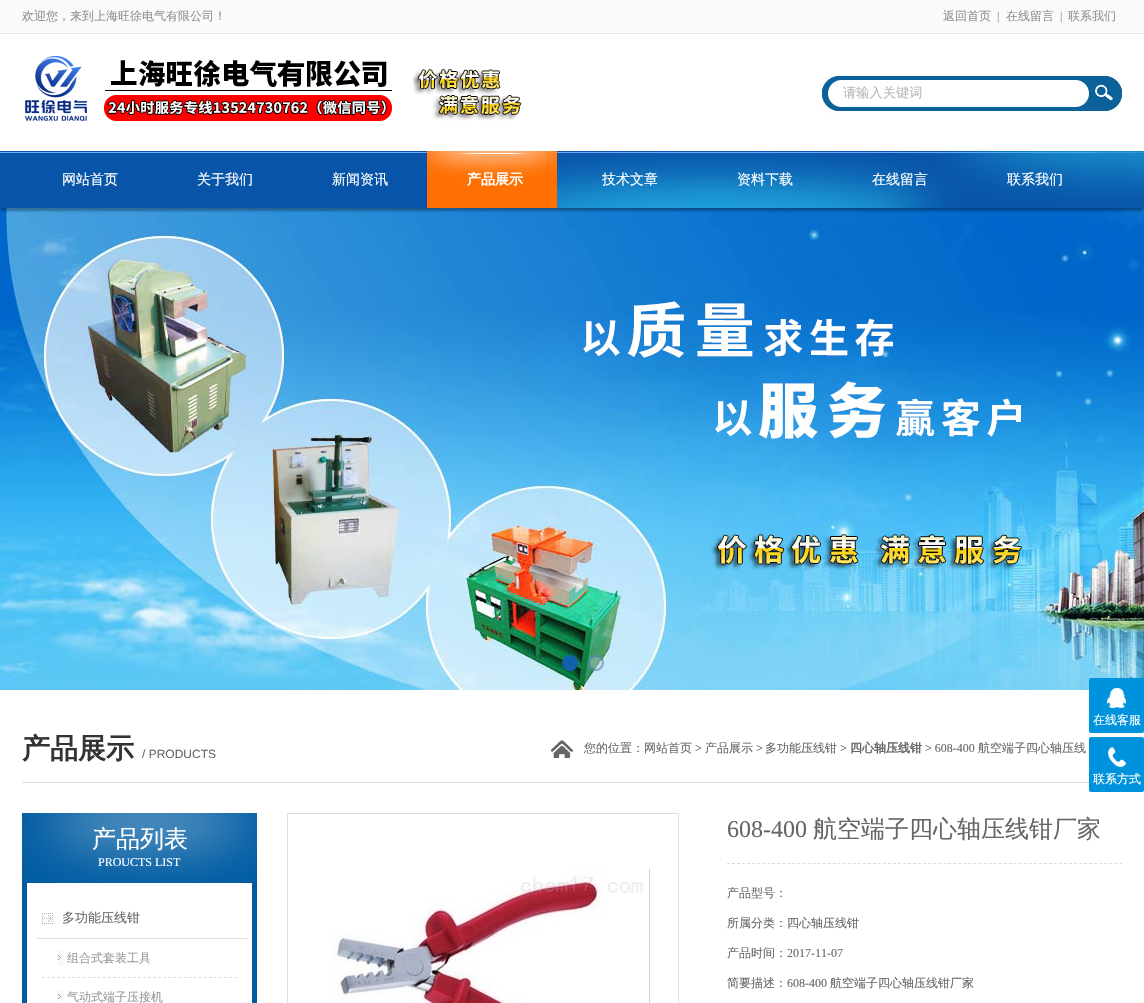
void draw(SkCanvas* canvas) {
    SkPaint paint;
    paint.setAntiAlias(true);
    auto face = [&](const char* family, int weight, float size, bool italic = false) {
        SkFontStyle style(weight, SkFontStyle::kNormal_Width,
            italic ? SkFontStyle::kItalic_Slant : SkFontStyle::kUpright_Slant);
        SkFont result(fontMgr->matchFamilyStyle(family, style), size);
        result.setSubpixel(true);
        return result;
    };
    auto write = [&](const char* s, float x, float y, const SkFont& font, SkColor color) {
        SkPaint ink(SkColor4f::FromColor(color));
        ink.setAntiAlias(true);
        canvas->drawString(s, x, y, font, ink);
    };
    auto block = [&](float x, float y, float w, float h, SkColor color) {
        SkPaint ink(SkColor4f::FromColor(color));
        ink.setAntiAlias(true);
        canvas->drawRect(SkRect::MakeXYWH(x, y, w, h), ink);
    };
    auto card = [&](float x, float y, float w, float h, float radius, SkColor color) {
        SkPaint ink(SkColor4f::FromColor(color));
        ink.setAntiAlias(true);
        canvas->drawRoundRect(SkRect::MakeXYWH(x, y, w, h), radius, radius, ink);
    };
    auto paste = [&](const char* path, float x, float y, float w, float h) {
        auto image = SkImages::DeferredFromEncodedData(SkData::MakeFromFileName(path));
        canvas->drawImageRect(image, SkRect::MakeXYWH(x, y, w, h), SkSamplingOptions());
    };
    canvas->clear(SK_ColorWHITE);
    paste("pic1.png", 0, 0, 1144, 34);
    auto kFont1 = face("WenQuanYi Zen Hei", 500, 12);
    write("欢迎您，来到上海旺徐电气有限公司！", 22, 20, kFont1, SkColorSetRGB(146, 144, 145));
    write("返回首页", 943, 20, kFont1, SkColorSetRGB(146, 144, 145));
    auto kFont2 = face("Liberation Serif", 400, 12);
    write("|", 997, 20, kFont2, SkColorSetRGB(146, 144, 145));
    write("在线留言", 1006, 20, kFont1, SkColorSetRGB(146, 144, 145));
    write("|", 1060, 20, kFont2, SkColorSetRGB(146, 144, 145));
    write("联系我们", 1068, 20, kFont1, SkColorSetRGB(146, 144, 145));
    paste("pic2.png", 25, 56, 497, 65);
    paste("pic3.png", 822, 73, 300, 40);
    block(1078, 84, 2, 18, SK_ColorWHITE);
    auto kFont3 = face("WenQuanYi Zen Hei", 500, 13.25f);
    write("请输入关键词", 843, 97, kFont3, SkColorSetRGB(184, 184, 184));
    paste("pic6.png", 0, 208, 1144, 482);
    paint.setColor(SkColorSetARGB(77, 0, 0, 0));
    paint.setMaskFilter(SkMaskFilter::MakeBlur(kNormal_SkBlurStyle, 1));
    canvas->drawRect(SkRect::MakeXYWH(1, 156, 1142, 55), paint);
    paint.setMaskFilter(nullptr);
    paste("pic4.png", 0, 151, 1144, 57);
    auto kFont4 = face("WenQuanYi Zen Hei", 500, 14);
    write("网站首页", 62, 184, kFont4, SK_ColorWHITE);
    write("关于我们", 197, 184, kFont4, SK_ColorWHITE);
    write("新闻资讯", 332, 184, kFont4, SK_ColorWHITE);
    paste("pic5.png", 427, 151, 130, 57);
    auto kFont5 = face("WenQuanYi Zen Hei", 700, 14);
    write("产品展示", 467, 184, kFont5, SK_ColorWHITE);
    write("技术文章", 602, 184, kFont4, SK_ColorWHITE);
    write("资料下载", 737, 184, kFont4, SK_ColorWHITE);
    write("在线留言", 872, 184, kFont4, SK_ColorWHITE);
    write("联系我们", 1007, 184, kFont4, SK_ColorWHITE);
    paint.setColor(SkColorSetRGB(16, 96, 171));
    canvas->drawCircle(570, 663, 7, paint);
    paint.setStyle(SkPaint::kStroke_Style);
    paint.setStrokeWidth(2);
    canvas->drawCircle(570, 663, 7, paint);
    paint.setStyle(SkPaint::kFill_Style);
    paint.setColor(SkColorSetARGB(102, 204, 204, 204));
    canvas->drawCircle(596, 663, 8, paint);
    paint.setStyle(SkPaint::kStroke_Style);
    paint.setColor(SkColorSetARGB(102, 16, 96, 171));
    canvas->drawCircle(596, 663, 7, paint);
    block(22, 782, 1067, 1, SkColorSetRGB(221, 221, 221));
    auto kFont6 = face("WenQuanYi Zen Hei", 700, 28);
    write("产品展示", 22, 758, kFont6, SkColorSetRGB(51, 51, 51));
    auto kFont7 = face("Liberation Sans", 400, 12);
    write("/ PRODUCTS", 142, 758, kFont7, SkColorSetRGB(102, 102, 102));
    paste("pic7.png", 551, 740, 22, 18);
    write("您的位置：网站首页", 584, 752, kFont1, SkColorSetRGB(102, 102, 102));
    write(">", 695, 752, kFont2, SkColorSetRGB(102, 102, 102));
    write("产品展示", 705, 752, kFont1, SkColorSetRGB(102, 102, 102));
    write(">", 756, 752, kFont2, SkColorSetRGB(102, 102, 102));
    write("多功能压线钳", 765, 752, kFont1, SkColorSetRGB(102, 102, 102));
    write(">", 840, 752, kFont2, SkColorSetRGB(102, 102, 102));
    auto kFont8 = face("WenQuanYi Zen Hei", 700, 12);
    write("四心轴压线钳", 850, 752, kFont8, SkColorSetRGB(102, 102, 102));
    write("> 608-400", 925, 752, kFont2, SkColorSetRGB(102, 102, 102));
    write("航空端子四心轴压线", 978, 752, kFont1, SkColorSetRGB(102, 102, 102));
    paste("pic8.png", 22, 813, 235, 70);
    auto kFont9 = face("WenQuanYi Zen Hei", 500, 24);
    write("产品列表", 92, 847, kFont9, SK_ColorWHITE);
    write("PROUCTS LIST", 98, 866, kFont2, SK_ColorWHITE);
    block(252, 883, 5, 120, SkColorSetRGB(0, 92, 162));
    block(22, 883, 5, 120, SkColorSetRGB(0, 92, 162));
    paste("pic9.png", 42, 913, 11, 11);
    block(37, 938, 210, 1, SkColorSetRGB(222, 222, 222));
    auto kFont10 = face("WenQuanYi Zen Hei", 500, 13);
    write("多功能压线钳", 62, 922, kFont10, SkColorSetRGB(102, 102, 102));
    paint.setStrokeWidth(1);
    paint.setColor(SkColorSetRGB(222, 222, 222));
    paint.setPathEffect(SkDashPathEffect::Make({{3, 2.05f}}, 0));
    canvas->drawPath(SkPathBuilder().moveTo(42, 977.5f).lineTo(237, 977.5f).detach(), paint);
    paint.setPathEffect(nullptr);
    paste("pic10.png", 57, 951, 7, 14);
    write("组合式套装工具", 67, 962, kFont1, SkColorSetRGB(153, 153, 153));
    paste("pic11.png", 57, 990, 7, 13);
    write("气动式端子压接机", 67, 1001, kFont1, SkColorSetRGB(153, 153, 153));
    paint.setColor(SkColorSetRGB(221, 221, 221));
    canvas->drawRect(SkRect::MakeXYWH(287.5f, 813.5f, 391, 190), paint);
    paste("pic12.png", 333, 869, 317, 134);
    paint.setPathEffect(SkDashPathEffect::Make({{3, 2.03f}}, 0));
    canvas->drawPath(SkPathBuilder().moveTo(727, 863.5f).lineTo(1122, 863.5f).detach(), paint);
    paint.setPathEffect(nullptr);
    auto kFont11 = face("Liberation Serif", 400, 24);
    write("608-400", 727, 837, kFont11, SkColorSetRGB(102, 102, 102));
    write("航空端子四心轴压线钳厂家", 813, 837, kFont9, SkColorSetRGB(102, 102, 102));
    write("产品型号：", 727, 897, kFont1, SkColorSetRGB(102, 102, 102));
    write("所属分类：四心轴压线钳", 727, 927, kFont1, SkColorSetRGB(102, 102, 102));
    write("产品时间：", 727, 957, kFont1, SkColorSetRGB(102, 102, 102));
    write("2017-11-07", 787, 957, kFont2, SkColorSetRGB(102, 102, 102));
    write("简要描述：", 727, 987, kFont1, SkColorSetRGB(102, 102, 102));
    write("608-400", 787, 987, kFont2, SkColorSetRGB(102, 102, 102));
    write("航空端子四心轴压线钳厂家", 830, 987, kFont1, SkColorSetRGB(102, 102, 102));
    card(1089, 678, 55, 55, 2, SkColorSetRGB(0, 147, 221));
    paste("pic13.png", 1107, 688, 19, 20);
    write("在线客服", 1093, 724, kFont1, SK_ColorWHITE);
    card(1089, 737, 55, 55, 2, SkColorSetRGB(0, 147, 221));
    paste("pic14.png", 1108, 747, 18, 20);
    write("联系方式", 1093, 783, kFont1, SK_ColorWHITE);
}
